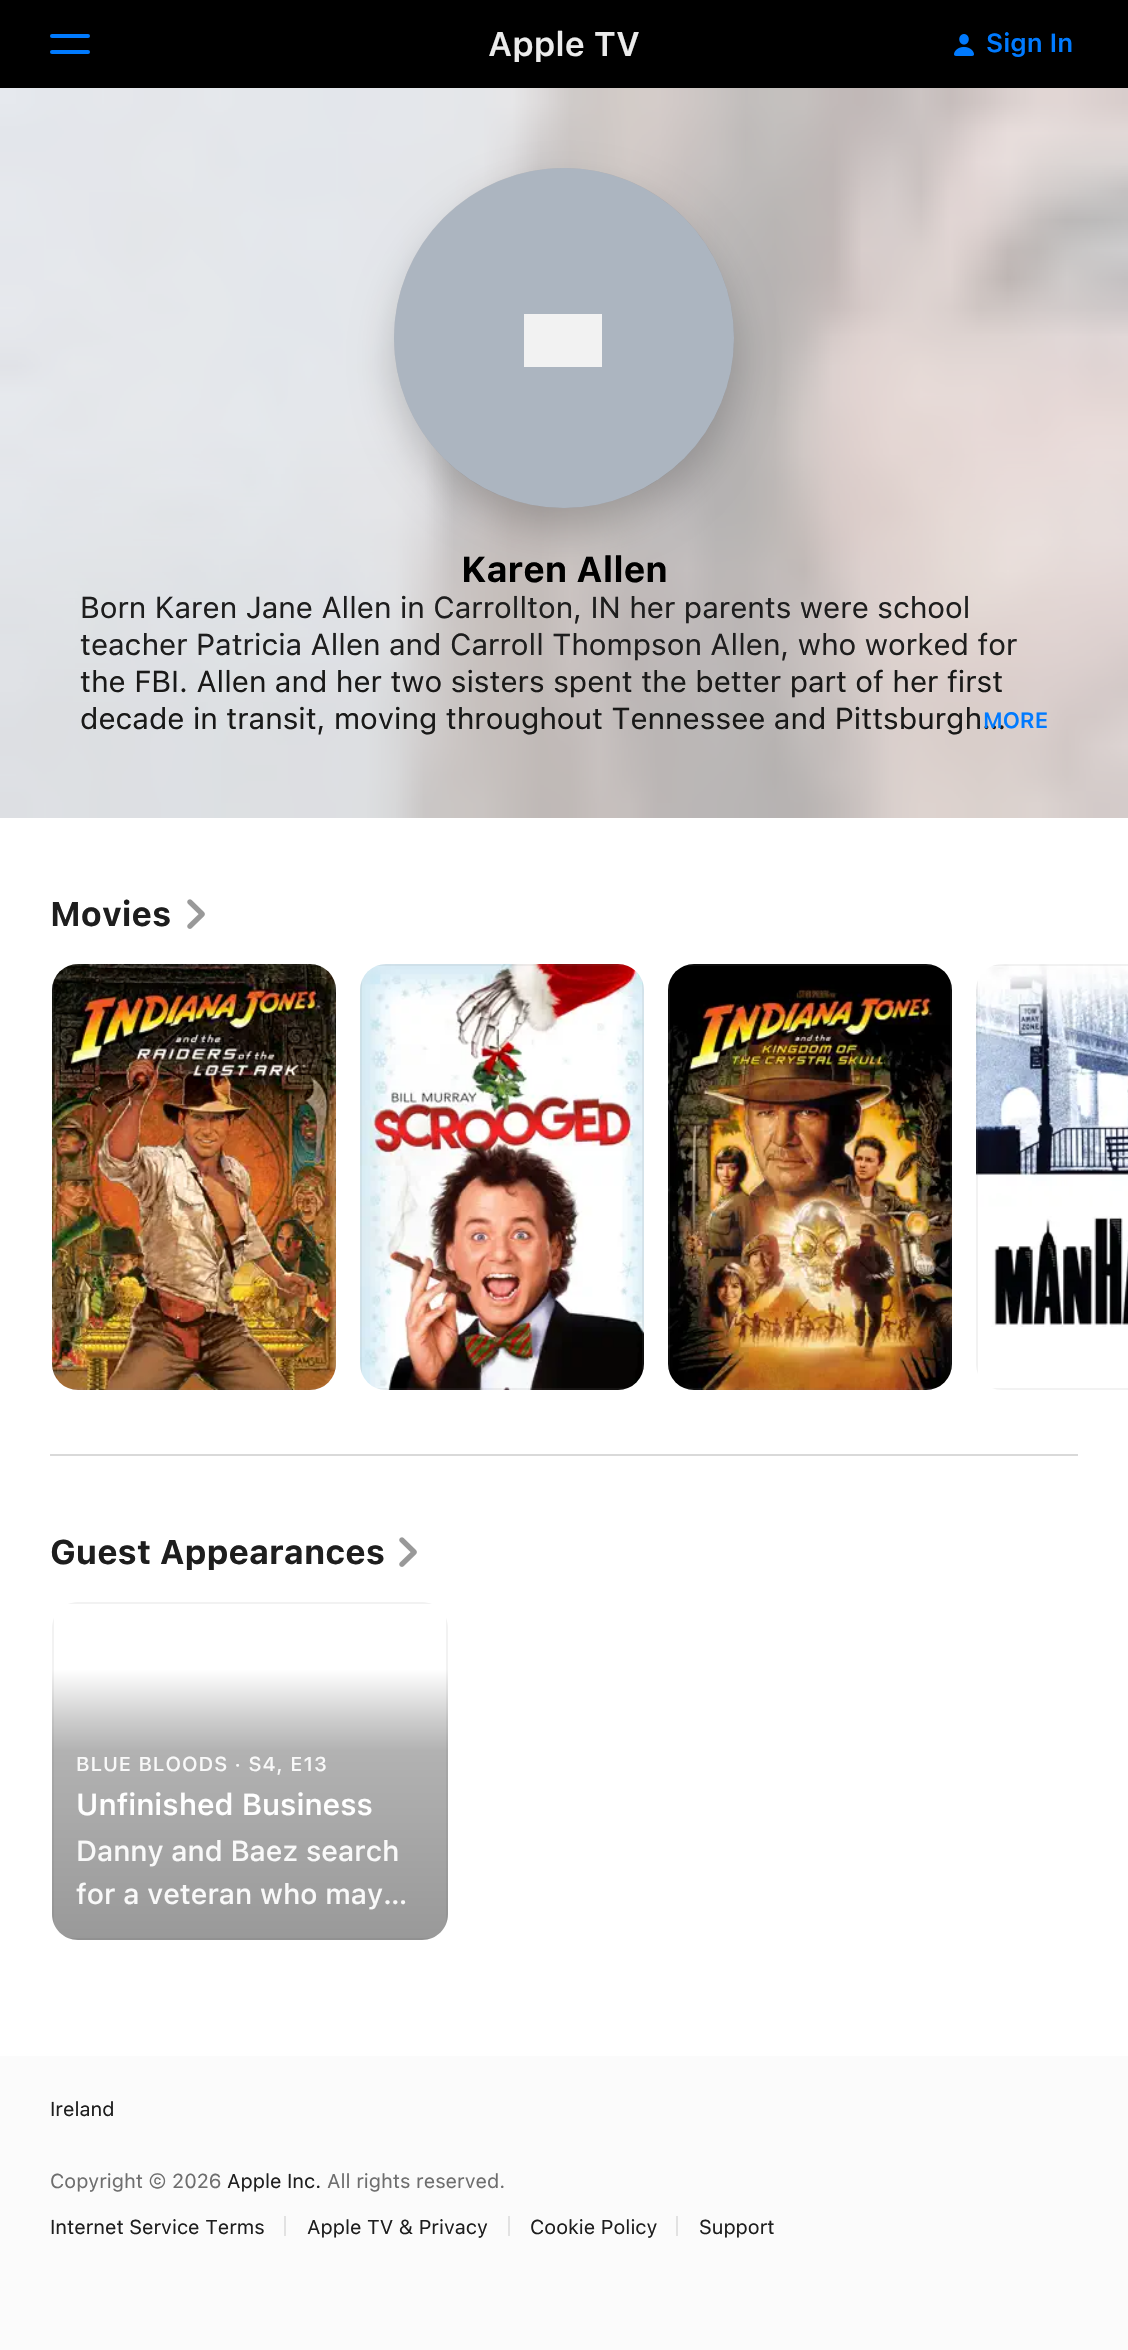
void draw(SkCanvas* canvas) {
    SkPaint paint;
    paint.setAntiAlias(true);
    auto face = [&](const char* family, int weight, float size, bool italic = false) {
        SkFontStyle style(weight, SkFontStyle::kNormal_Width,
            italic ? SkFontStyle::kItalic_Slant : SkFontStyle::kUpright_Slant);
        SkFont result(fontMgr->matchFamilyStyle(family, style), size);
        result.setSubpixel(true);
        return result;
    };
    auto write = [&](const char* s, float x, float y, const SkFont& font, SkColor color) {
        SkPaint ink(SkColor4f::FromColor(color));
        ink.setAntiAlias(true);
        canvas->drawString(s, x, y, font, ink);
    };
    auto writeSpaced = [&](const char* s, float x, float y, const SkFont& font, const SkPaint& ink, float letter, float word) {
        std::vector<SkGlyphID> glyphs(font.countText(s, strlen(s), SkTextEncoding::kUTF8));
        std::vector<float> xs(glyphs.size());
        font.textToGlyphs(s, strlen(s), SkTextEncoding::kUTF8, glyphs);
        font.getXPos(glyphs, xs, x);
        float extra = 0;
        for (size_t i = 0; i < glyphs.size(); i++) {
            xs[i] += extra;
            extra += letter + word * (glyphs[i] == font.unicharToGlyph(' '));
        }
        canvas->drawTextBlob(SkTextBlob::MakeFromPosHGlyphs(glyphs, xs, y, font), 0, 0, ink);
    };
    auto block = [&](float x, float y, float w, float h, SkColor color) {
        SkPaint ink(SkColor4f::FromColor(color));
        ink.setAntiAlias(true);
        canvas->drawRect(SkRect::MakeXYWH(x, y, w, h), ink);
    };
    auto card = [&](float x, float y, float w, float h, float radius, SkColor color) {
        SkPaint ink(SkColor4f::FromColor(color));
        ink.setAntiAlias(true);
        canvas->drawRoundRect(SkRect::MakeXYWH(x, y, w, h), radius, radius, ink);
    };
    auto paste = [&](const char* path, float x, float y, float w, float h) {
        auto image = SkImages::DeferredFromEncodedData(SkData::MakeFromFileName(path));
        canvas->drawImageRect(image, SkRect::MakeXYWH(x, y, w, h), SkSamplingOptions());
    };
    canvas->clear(SK_ColorWHITE);
    block(0, 0, 1128, 88, SK_ColorBLACK);
    card(50, 34, 40, 4, 2, SkColorSetRGB(0, 122, 255));
    card(50, 50, 40, 4, 2, SkColorSetRGB(0, 122, 255));
    auto kFont1 = face("SF", 600, 34);
    write("Apple TV", 488, 56, kFont1, SkColorSetRGB(235, 235, 235));
    paste("pic1.png", 954, 34, 20, 22);
    auto kFont2 = face("SF", 600, 26);
    write("Sign In", 986, 52, kFont2, SkColorSetRGB(0, 122, 255));
    paste("pic2.png", 0, 88, 1128, 730);
    paint.setColor(SkColorSetARGB(51, 0, 0, 0));
    paint.setMaskFilter(SkMaskFilter::MakeBlur(kNormal_SkBlurStyle, 20));
    canvas->drawRoundRect(SkRect::MakeXYWH(394, 188, 340, 340), 170, 170, paint);
    paint.setMaskFilter(nullptr);
    paint.setStyle(SkPaint::kStroke_Style);
    paint.setStrokeWidth(2);
    paint.setColor(SkColorSetARGB(20, 0, 0, 0));
    canvas->drawCircle(564, 338, 169, paint);
    paint.setStyle(SkPaint::kFill_Style);
    paint.setColor(SkColorSetRGB(177, 187, 200));
    canvas->drawCircle(564, 338, 170, paint);
    block(524, 314, 78, 53, SK_ColorWHITE);
    paint.setColor(SkColorSetARGB(26, 128, 128, 128));
    canvas->drawPath(SkPathBuilder().moveTo(564, 168).cubicTo(658, 168, 734, 244, 734, 338).cubicTo(734, 432, 658, 508, 564, 508).cubicTo(470, 508, 394, 432, 394, 338).cubicTo(394, 244, 470, 168, 564, 168).close().detach(), paint);
    auto kFont3 = face("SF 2", 700, 36);
    write("Karen Allen", 461, 582, kFont3, SK_ColorBLACK);
    auto kFont4 = face("SF", 400, 30);
    write("Born Karen Jane Allen in Carrollton, IN her parents were school", 80, 618, kFont4, SkColorSetRGB(30, 30, 30));
    write("teacher Patricia Allen and Carroll Thompson Allen, who worked for", 80, 655, kFont4, SkColorSetRGB(30, 30, 30));
    write("the FBI. Allen and her two sisters spent the better part of her first", 80, 692, kFont4, SkColorSetRGB(25, 25, 24));
    write("decade in transit, moving throughout Tennessee and Pittsburgh…", 80, 729, kFont4, SkColorSetRGB(25, 25, 24));
    auto kFont5 = face("SF", 600, 22);
    write("MORE", 983, 728, kFont5, SkColorSetRGB(0, 122, 255));
    auto kFont6 = face("SF", 700, 34);
    write("Movies", 50, 926, kFont6, SkColorSetRGB(30, 30, 30));
    paste("pic3.png", 187, 899, 18, 30);
    paste("pic4.png", 52, 964, 284, 426);
    canvas->drawPath(SkPathBuilder(SkPathFillType::kEvenOdd).moveTo(52, 990).lineTo(52, 1364).cubicTo(52, 1368, 53, 1371, 54, 1374).lineTo(54, 980).cubicTo(53, 983, 52, 986, 52, 990).close().moveTo(78, 964).cubicTo(74, 964, 71, 965, 68, 966).lineTo(320, 966).cubicTo(317, 965, 314, 964, 310, 964).close().moveTo(336, 990).cubicTo(336, 986, 335, 983, 334, 980).lineTo(334, 1374).cubicTo(335, 1371, 336, 1368, 336, 1364).close().moveTo(310, 1390).cubicTo(314, 1390, 317, 1389, 320, 1388).lineTo(68, 1388).cubicTo(71, 1389, 74, 1390, 78, 1390).close().detach(), paint);
    paste("pic5.png", 360, 964, 284, 426);
    canvas->drawPath(SkPathBuilder(SkPathFillType::kEvenOdd).moveTo(360, 990).lineTo(360, 1364).cubicTo(360, 1368, 361, 1371, 362, 1374).lineTo(362, 980).cubicTo(361, 983, 360, 986, 360, 990).close().moveTo(386, 964).cubicTo(382, 964, 379, 965, 376, 966).lineTo(628, 966).cubicTo(625, 965, 622, 964, 618, 964).close().moveTo(644, 990).cubicTo(644, 986, 643, 983, 642, 980).lineTo(642, 1374).cubicTo(643, 1371, 644, 1368, 644, 1364).close().moveTo(618, 1390).cubicTo(622, 1390, 625, 1389, 628, 1388).lineTo(376, 1388).cubicTo(379, 1389, 382, 1390, 386, 1390).close().detach(), paint);
    paste("pic6.png", 668, 964, 284, 426);
    canvas->drawPath(SkPathBuilder(SkPathFillType::kEvenOdd).moveTo(668, 990).lineTo(668, 1364).cubicTo(668, 1368, 669, 1371, 670, 1374).lineTo(670, 980).cubicTo(669, 983, 668, 986, 668, 990).close().moveTo(694, 964).cubicTo(690, 964, 687, 965, 684, 966).lineTo(936, 966).cubicTo(933, 965, 930, 964, 926, 964).close().moveTo(952, 990).cubicTo(952, 986, 951, 983, 950, 980).lineTo(950, 1374).cubicTo(951, 1371, 952, 1368, 952, 1364).close().moveTo(926, 1390).cubicTo(930, 1390, 933, 1389, 936, 1388).lineTo(684, 1388).cubicTo(687, 1389, 690, 1390, 694, 1390).close().detach(), paint);
    paste("pic7.png", 976, 964, 152, 363);
    canvas->drawPath(SkPathBuilder(SkPathFillType::kEvenOdd).moveTo(976, 990).lineTo(976, 1364).cubicTo(976, 1368, 977, 1371, 978, 1374).lineTo(978, 980).cubicTo(977, 983, 976, 986, 976, 990).close().moveTo(1002, 964).cubicTo(998, 964, 995, 965, 992, 966).lineTo(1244, 966).cubicTo(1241, 965, 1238, 964, 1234, 964).close().moveTo(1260, 990).cubicTo(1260, 986, 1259, 983, 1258, 980).lineTo(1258, 1374).cubicTo(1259, 1371, 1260, 1368, 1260, 1364).close().moveTo(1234, 1390).cubicTo(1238, 1390, 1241, 1389, 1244, 1388).lineTo(992, 1388).cubicTo(995, 1389, 998, 1390, 1002, 1390).close().detach(), paint);
    block(50, 1454, 1028, 2, SkColorSetRGB(217, 217, 217));
    write("Guest Appearances", 50, 1564, kFont6, SkColorSetRGB(30, 30, 30));
    paste("pic3.png", 399, 1537, 18, 30);
    paint.setColor(SkColorSetRGB(242, 242, 242));
    canvas->drawPath(SkPathBuilder(SkPathFillType::kEvenOdd).moveTo(52, 1628).lineTo(52, 1914).cubicTo(52, 1918, 53, 1921, 54, 1924).lineTo(54, 1618).cubicTo(53, 1621, 52, 1624, 52, 1628).close().moveTo(78, 1602).cubicTo(74, 1602, 71, 1603, 68, 1604).lineTo(432, 1604).cubicTo(429, 1603, 426, 1602, 422, 1602).close().moveTo(448, 1628).cubicTo(448, 1624, 447, 1621, 446, 1618).lineTo(446, 1924).cubicTo(447, 1921, 448, 1918, 448, 1914).close().moveTo(422, 1940).cubicTo(426, 1940, 429, 1939, 432, 1938).lineTo(68, 1938).cubicTo(71, 1939, 74, 1940, 78, 1940).close().detach(), paint);
    {
        const SkColor colors[] = {SkColorSetARGB(0, 0, 0, 0), SkColorSetARGB(33, 0, 0, 0), SkColorSetARGB(54, 0, 0, 0), SkColorSetARGB(77, 0, 0, 0), SkColorSetARGB(102, 0, 0, 0)};
        const float stops[] = {0, 0.12f, 0.2f, 0.3f, 1};
        const SkPoint ends[] = {{250, 1670}, {250, 1940}};
        paint.setShader(SkGradientShader::MakeLinear(ends, colors, stops, 5, SkTileMode::kClamp));
        paint.setAlpha(255);
    }
    canvas->drawPath(SkPathBuilder().moveTo(52, 1670).lineTo(448, 1670).lineTo(448, 1914).cubicTo(448, 1928.5f, 436.5f, 1940, 422, 1940).lineTo(78, 1940).cubicTo(63.5f, 1940, 52, 1928.5f, 52, 1914).close().detach(), paint);
    auto kFont7 = face("SF", 500, 20);
    paint.setShader(nullptr);
    paint.setColor(SkColorSetRGB(249, 249, 249));
    writeSpaced("BLUE BLOODS · S4, E13", 76, 1771, kFont7, paint, 1, 0);
    auto kFont8 = face("SF 2", 500, 30);
    write("Unfinished Business", 76, 1815, kFont8, SK_ColorWHITE);
    auto kFont9 = face("SF", 500, 28.6f);
    write("Danny and Baez search", 76, 1861, kFont9, SkColorSetRGB(249, 249, 249));
    write("for a veteran who may…", 76, 1904, kFont9, SkColorSetRGB(249, 249, 249));
    block(0, 2056, 1128, 294, SkColorSetRGB(251, 251, 251));
    auto kFont10 = face("SF", 400, 20);
    write("Ireland", 50, 2116, kFont10, SkColorSetRGB(30, 30, 30));
    write("Copyright © 2026", 50, 2188, kFont10, SkColorSetRGB(110, 110, 110));
    write("Apple Inc.", 227, 2188, kFont10, SkColorSetRGB(30, 30, 30));
    write("All rights reserved.", 327, 2188, kFont10, SkColorSetRGB(110, 110, 110));
    write("Internet Service Terms", 50, 2234, kFont10, SkColorSetRGB(30, 30, 30));
    block(284, 2216, 2, 20, SkColorSetRGB(226, 226, 226));
    write("Apple TV & Privacy", 307, 2234, kFont10, SkColorSetRGB(30, 30, 30));
    block(508, 2216, 2, 20, SkColorSetRGB(226, 226, 226));
    write("Cookie Policy", 530, 2234, kFont10, SkColorSetRGB(30, 30, 30));
    block(676, 2216, 2, 20, SkColorSetRGB(226, 226, 226));
    write("Support", 699, 2234, kFont10, SkColorSetRGB(30, 30, 30));
}
